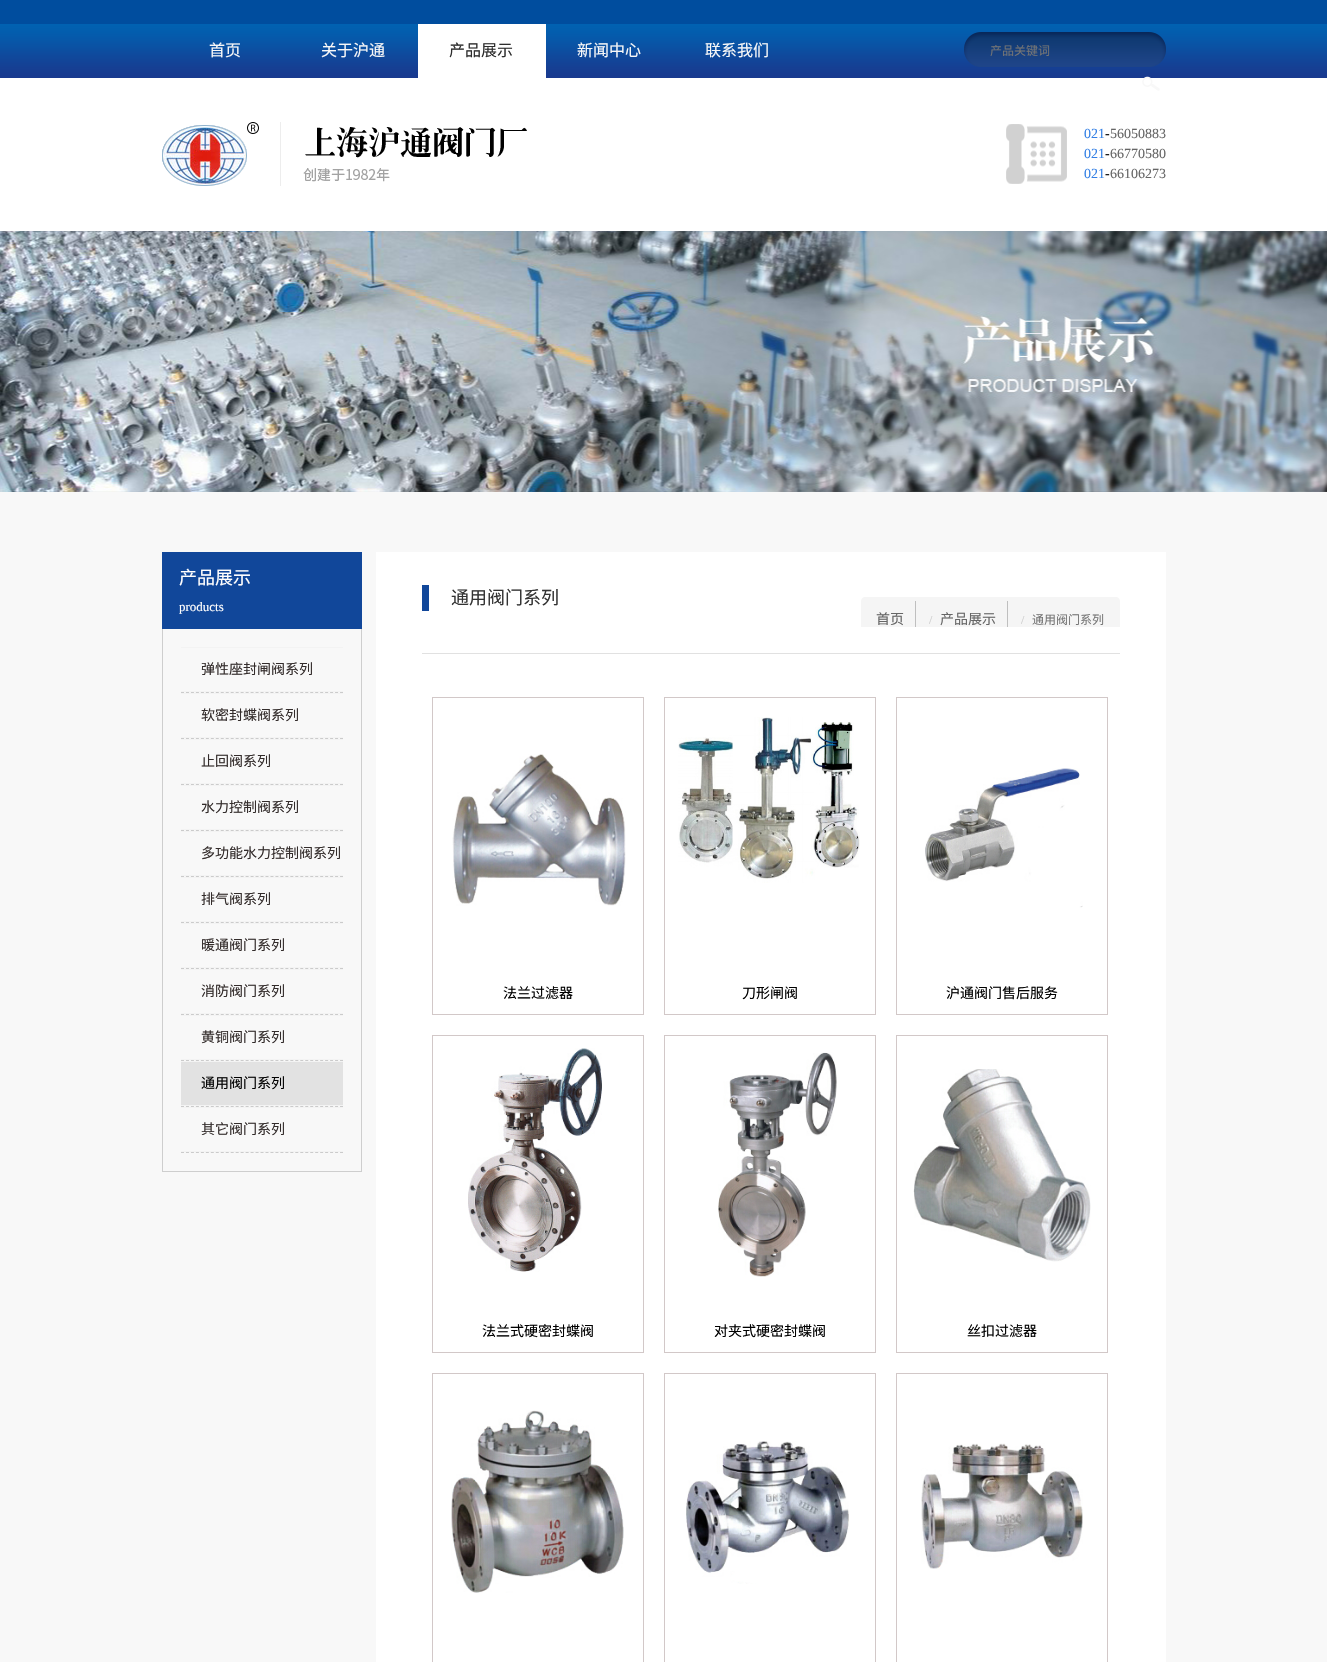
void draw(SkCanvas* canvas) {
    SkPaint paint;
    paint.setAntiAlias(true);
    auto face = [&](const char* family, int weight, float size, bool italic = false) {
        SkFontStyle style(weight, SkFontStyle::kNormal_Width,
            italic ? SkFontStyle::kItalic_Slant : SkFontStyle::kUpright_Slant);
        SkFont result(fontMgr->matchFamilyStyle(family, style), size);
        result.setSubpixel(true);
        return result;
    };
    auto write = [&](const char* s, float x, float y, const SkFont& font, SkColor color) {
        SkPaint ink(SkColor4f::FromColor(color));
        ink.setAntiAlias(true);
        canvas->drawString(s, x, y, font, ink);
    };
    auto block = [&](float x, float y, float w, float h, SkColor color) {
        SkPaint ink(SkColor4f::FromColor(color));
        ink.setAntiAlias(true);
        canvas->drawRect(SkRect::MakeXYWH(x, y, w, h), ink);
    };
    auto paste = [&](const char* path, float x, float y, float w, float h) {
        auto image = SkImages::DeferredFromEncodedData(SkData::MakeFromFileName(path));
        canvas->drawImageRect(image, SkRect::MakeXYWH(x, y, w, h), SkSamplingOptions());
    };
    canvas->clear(SK_ColorWHITE);
    paste("pic1.png", 0, 24, 1327, 54);
    block(0, 0, 1327, 24, SkColorSetRGB(0, 77, 158));
    auto kFont1 = face("Noto Sans CJK SC", 400, 16);
    write("首页", 209, 56, kFont1, SkColorSetRGB(248, 248, 248));
    write("关于沪通", 321, 56, kFont1, SkColorSetRGB(248, 248, 248));
    block(418, 24, 128, 54, SK_ColorWHITE);
    write("产品展示", 449, 56, kFont1, SkColorSetRGB(45, 45, 45));
    write("新闻中心", 577, 56, kFont1, SkColorSetRGB(248, 248, 248));
    write("联系我们", 705, 56, kFont1, SkColorSetRGB(248, 248, 248));
    paste("pic2.png", 964, 32, 202, 35);
    auto kFont2 = face("Noto Sans CJK SC", 400, 12);
    write("产品关键词", 990, 55, kFont2, SkColorSetRGB(117, 117, 117));
    paste("pic3.png", 1142, 76, 18, 15);
    paste("pic4.png", 162, 122, 365, 64);
    paste("pic5.png", 1006, 124, 61, 60);
    auto kFont3 = face("Liberation Serif", 400, 14);
    write("021", 1084, 138, kFont3, SkColorSetRGB(51, 127, 229));
    write("-", 1105, 138, kFont3, SK_ColorBLACK);
    write("56050883", 1110, 138, kFont3, SkColorSetRGB(102, 102, 102));
    write("021", 1084, 158, kFont3, SkColorSetRGB(51, 127, 229));
    write("-", 1105, 158, kFont3, SK_ColorBLACK);
    write("66770580", 1110, 158, kFont3, SkColorSetRGB(102, 102, 102));
    write("021", 1084, 178, kFont3, SkColorSetRGB(51, 127, 229));
    write("-", 1105, 178, kFont3, SK_ColorBLACK);
    write("66106273", 1110, 178, kFont3, SkColorSetRGB(102, 102, 102));
    paste("pic6.png", 0, 231, 1327, 261);
    block(0, 492, 1327, 1170, SkColorSetRGB(248, 248, 248));
    block(162, 552, 200, 77, SkColorSetRGB(17, 71, 154));
    auto kFont4 = face("Noto Sans CJK SC", 400, 18);
    write("产品展示", 179, 584, kFont4, SkColorSetRGB(255, 254, 254));
    auto kFont5 = face("Liberation Serif", 400, 13);
    write("products", 179, 611, kFont5, SkColorSetRGB(255, 254, 254));
    block(361, 629, 1, 543, SkColorSetRGB(206, 206, 206));
    block(162, 1171, 200, 1, SkColorSetRGB(206, 206, 206));
    block(162, 629, 1, 543, SkColorSetRGB(206, 206, 206));
    paint.setStyle(SkPaint::kStroke_Style);
    paint.setStrokeWidth(1);
    paint.setColor(SkColorSetRGB(203, 203, 203));
    paint.setPathEffect(SkDashPathEffect::Make({{3, 1.97f}}, 0));
    canvas->drawPath(SkPathBuilder().moveTo(181, 692.5f).lineTo(343, 692.5f).detach(), paint);
    paint.setPathEffect(nullptr);
    block(181, 647, 162, 1, SkColorSetRGB(243, 243, 243));
    block(181, 691, 162, 1, SkColorSetRGB(243, 243, 243));
    auto kFont6 = face("Noto Sans CJK SC", 400, 14);
    write("弹性座封闸阀系列", 201, 674, kFont6, SkColorSetRGB(51, 44, 43));
    paint.setPathEffect(SkDashPathEffect::Make({{3, 1.97f}}, 0));
    canvas->drawPath(SkPathBuilder().moveTo(181, 738.5f).lineTo(343, 738.5f).detach(), paint);
    paint.setPathEffect(nullptr);
    block(181, 693, 162, 1, SkColorSetRGB(243, 243, 243));
    block(181, 737, 162, 1, SkColorSetRGB(243, 243, 243));
    write("软密封蝶阀系列", 201, 720, kFont6, SkColorSetRGB(51, 44, 43));
    paint.setPathEffect(SkDashPathEffect::Make({{3, 1.97f}}, 0));
    canvas->drawPath(SkPathBuilder().moveTo(181, 784.5f).lineTo(343, 784.5f).detach(), paint);
    paint.setPathEffect(nullptr);
    block(181, 739, 162, 1, SkColorSetRGB(243, 243, 243));
    block(181, 783, 162, 1, SkColorSetRGB(243, 243, 243));
    write("止回阀系列", 201, 766, kFont6, SkColorSetRGB(51, 44, 43));
    paint.setPathEffect(SkDashPathEffect::Make({{3, 1.97f}}, 0));
    canvas->drawPath(SkPathBuilder().moveTo(181, 830.5f).lineTo(343, 830.5f).detach(), paint);
    paint.setPathEffect(nullptr);
    block(181, 785, 162, 1, SkColorSetRGB(243, 243, 243));
    block(181, 829, 162, 1, SkColorSetRGB(243, 243, 243));
    write("水力控制阀系列", 201, 812, kFont6, SkColorSetRGB(51, 44, 43));
    paint.setPathEffect(SkDashPathEffect::Make({{3, 1.97f}}, 0));
    canvas->drawPath(SkPathBuilder().moveTo(181, 876.5f).lineTo(343, 876.5f).detach(), paint);
    paint.setPathEffect(nullptr);
    block(181, 831, 162, 1, SkColorSetRGB(243, 243, 243));
    block(181, 875, 162, 1, SkColorSetRGB(243, 243, 243));
    write("多功能水力控制阀系列", 201, 858, kFont6, SkColorSetRGB(51, 44, 43));
    paint.setPathEffect(SkDashPathEffect::Make({{3, 1.97f}}, 0));
    canvas->drawPath(SkPathBuilder().moveTo(181, 922.5f).lineTo(343, 922.5f).detach(), paint);
    paint.setPathEffect(nullptr);
    block(181, 877, 162, 1, SkColorSetRGB(243, 243, 243));
    block(181, 921, 162, 1, SkColorSetRGB(243, 243, 243));
    write("排气阀系列", 201, 904, kFont6, SkColorSetRGB(51, 44, 43));
    paint.setPathEffect(SkDashPathEffect::Make({{3, 1.97f}}, 0));
    canvas->drawPath(SkPathBuilder().moveTo(181, 968.5f).lineTo(343, 968.5f).detach(), paint);
    paint.setPathEffect(nullptr);
    block(181, 923, 162, 1, SkColorSetRGB(243, 243, 243));
    block(181, 967, 162, 1, SkColorSetRGB(243, 243, 243));
    write("暖通阀门系列", 201, 950, kFont6, SkColorSetRGB(51, 44, 43));
    paint.setPathEffect(SkDashPathEffect::Make({{3, 1.97f}}, 0));
    canvas->drawPath(SkPathBuilder().moveTo(181, 1014.5f).lineTo(343, 1014.5f).detach(), paint);
    paint.setPathEffect(nullptr);
    block(181, 969, 162, 1, SkColorSetRGB(243, 243, 243));
    block(181, 1013, 162, 1, SkColorSetRGB(243, 243, 243));
    write("消防阀门系列", 201, 996, kFont6, SkColorSetRGB(51, 44, 43));
    paint.setPathEffect(SkDashPathEffect::Make({{3, 1.97f}}, 0));
    canvas->drawPath(SkPathBuilder().moveTo(181, 1060.5f).lineTo(343, 1060.5f).detach(), paint);
    paint.setPathEffect(nullptr);
    block(181, 1015, 162, 1, SkColorSetRGB(243, 243, 243));
    block(181, 1059, 162, 1, SkColorSetRGB(243, 243, 243));
    write("黄铜阀门系列", 201, 1042, kFont6, SkColorSetRGB(51, 44, 43));
    paint.setPathEffect(SkDashPathEffect::Make({{3, 1.97f}}, 0));
    canvas->drawPath(SkPathBuilder().moveTo(181, 1106.5f).lineTo(343, 1106.5f).detach(), paint);
    paint.setPathEffect(nullptr);
    block(181, 1062, 162, 43, SkColorSetRGB(226, 226, 226));
    block(181, 1061, 162, 1, SkColorSetRGB(243, 243, 243));
    block(181, 1105, 162, 1, SkColorSetRGB(243, 243, 243));
    write("通用阀门系列", 201, 1088, kFont6, SK_ColorBLACK);
    paint.setPathEffect(SkDashPathEffect::Make({{3, 1.97f}}, 0));
    canvas->drawPath(SkPathBuilder().moveTo(181, 1152.5f).lineTo(343, 1152.5f).detach(), paint);
    paint.setPathEffect(nullptr);
    block(181, 1107, 162, 1, SkColorSetRGB(243, 243, 243));
    block(181, 1151, 162, 1, SkColorSetRGB(243, 243, 243));
    write("其它阀门系列", 201, 1134, kFont6, SkColorSetRGB(51, 44, 43));
    block(376, 552, 790, 1110, SK_ColorWHITE);
    block(422, 653, 698, 1, SkColorSetRGB(225, 225, 225));
    block(422, 585, 7, 26, SkColorSetRGB(17, 71, 154));
    write("通用阀门系列", 451, 604, kFont4, SkColorSetRGB(51, 51, 51));
    paint.setStyle(SkPaint::kFill_Style);
    paint.setColor(SkColorSetRGB(245, 245, 245));
    canvas->drawPath(SkPathBuilder().moveTo(865, 597).lineTo(1116, 597).cubicTo(1118, 597, 1120, 599, 1120, 601).lineTo(1120, 627).lineTo(861, 627).lineTo(861, 601).cubicTo(861, 599, 863, 597, 865, 597).close().detach(), paint);
    write("首页", 876, 624, kFont6, SkColorSetRGB(102, 102, 102));
    block(915, 601, 1, 26, SkColorSetRGB(191, 191, 191));
    auto kFont7 = face("Liberation Serif", 400, 12);
    write("/", 929, 624, kFont7, SkColorSetRGB(204, 204, 204));
    write("产品展示", 940, 624, kFont6, SkColorSetRGB(102, 102, 102));
    block(1007, 601, 1, 26, SkColorSetRGB(191, 191, 191));
    write("/", 1021, 624, kFont7, SkColorSetRGB(204, 204, 204));
    write("通用阀门系列", 1032, 624, kFont2, SkColorSetRGB(117, 117, 117));
    paint.setStyle(SkPaint::kStroke_Style);
    paint.setColor(SkColorSetRGB(210, 200, 200));
    canvas->drawRect(SkRect::MakeXYWH(432.5f, 697.5f, 211, 317), paint);
    paste("pic7.png", 452, 754, 174, 152);
    write("法兰过滤器", 503, 998, kFont6, SK_ColorBLACK);
    canvas->drawRect(SkRect::MakeXYWH(664.5f, 697.5f, 211, 317), paint);
    paste("pic8.png", 678, 717, 182, 166);
    write("刀形闸阀", 742, 998, kFont6, SK_ColorBLACK);
    canvas->drawRect(SkRect::MakeXYWH(896.5f, 697.5f, 211, 317), paint);
    paste("pic9.png", 925, 768, 158, 140);
    write("沪通阀门售后服务", 946, 998, kFont6, SK_ColorBLACK);
    canvas->drawRect(SkRect::MakeXYWH(432.5f, 1035.5f, 211, 317), paint);
    paste("pic10.png", 468, 1048, 134, 224);
    write("法兰式硬密封蝶阀", 482, 1336, kFont6, SK_ColorBLACK);
    canvas->drawRect(SkRect::MakeXYWH(664.5f, 1035.5f, 211, 317), paint);
    paste("pic11.png", 718, 1052, 119, 225);
    write("对夹式硬密封蝶阀", 714, 1336, kFont6, SK_ColorBLACK);
    canvas->drawRect(SkRect::MakeXYWH(896.5f, 1035.5f, 211, 317), paint);
    paste("pic12.png", 913, 1069, 178, 193);
    write("丝扣过滤器", 967, 1336, kFont6, SK_ColorBLACK);
    canvas->drawRect(SkRect::MakeXYWH(432.5f, 1373.5f, 211, 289), paint);
    paste("pic13.png", 451, 1410, 173, 183);
    canvas->drawRect(SkRect::MakeXYWH(664.5f, 1373.5f, 211, 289), paint);
    paste("pic14.png", 686, 1441, 163, 143);
    canvas->drawRect(SkRect::MakeXYWH(896.5f, 1373.5f, 211, 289), paint);
    paste("pic15.png", 921, 1443, 162, 126);
}
